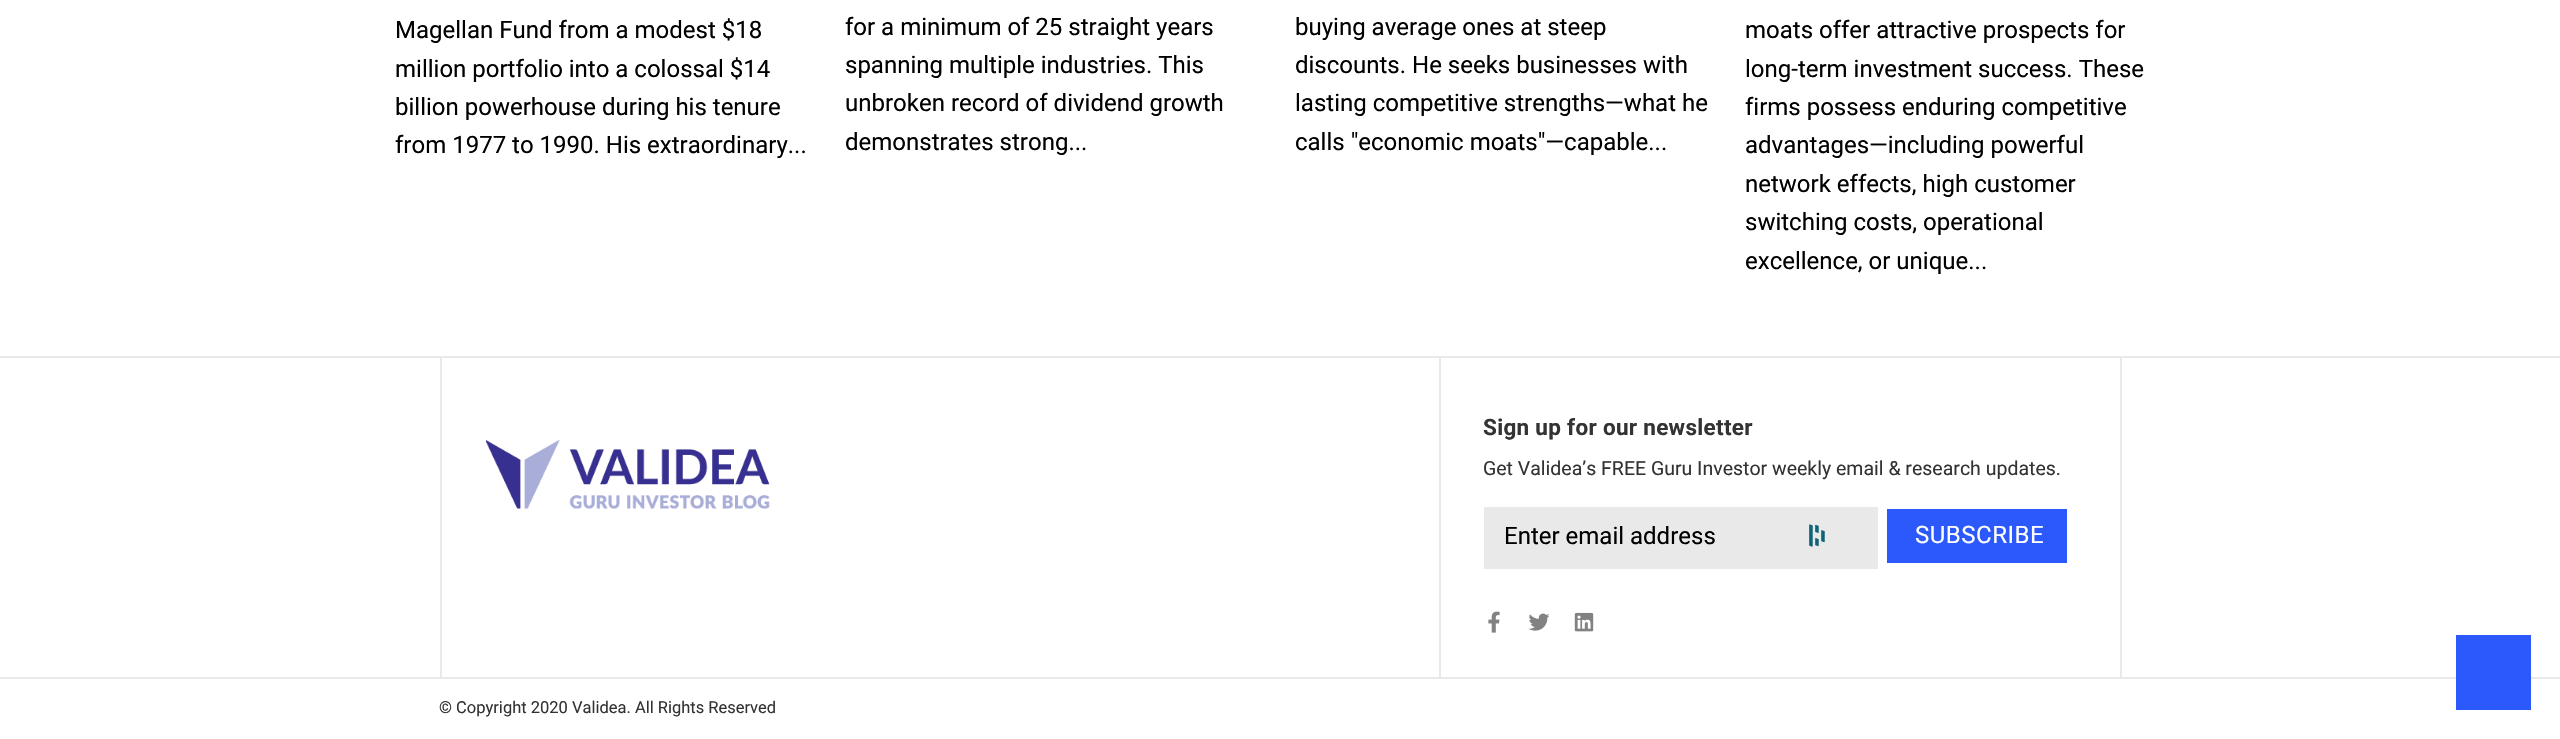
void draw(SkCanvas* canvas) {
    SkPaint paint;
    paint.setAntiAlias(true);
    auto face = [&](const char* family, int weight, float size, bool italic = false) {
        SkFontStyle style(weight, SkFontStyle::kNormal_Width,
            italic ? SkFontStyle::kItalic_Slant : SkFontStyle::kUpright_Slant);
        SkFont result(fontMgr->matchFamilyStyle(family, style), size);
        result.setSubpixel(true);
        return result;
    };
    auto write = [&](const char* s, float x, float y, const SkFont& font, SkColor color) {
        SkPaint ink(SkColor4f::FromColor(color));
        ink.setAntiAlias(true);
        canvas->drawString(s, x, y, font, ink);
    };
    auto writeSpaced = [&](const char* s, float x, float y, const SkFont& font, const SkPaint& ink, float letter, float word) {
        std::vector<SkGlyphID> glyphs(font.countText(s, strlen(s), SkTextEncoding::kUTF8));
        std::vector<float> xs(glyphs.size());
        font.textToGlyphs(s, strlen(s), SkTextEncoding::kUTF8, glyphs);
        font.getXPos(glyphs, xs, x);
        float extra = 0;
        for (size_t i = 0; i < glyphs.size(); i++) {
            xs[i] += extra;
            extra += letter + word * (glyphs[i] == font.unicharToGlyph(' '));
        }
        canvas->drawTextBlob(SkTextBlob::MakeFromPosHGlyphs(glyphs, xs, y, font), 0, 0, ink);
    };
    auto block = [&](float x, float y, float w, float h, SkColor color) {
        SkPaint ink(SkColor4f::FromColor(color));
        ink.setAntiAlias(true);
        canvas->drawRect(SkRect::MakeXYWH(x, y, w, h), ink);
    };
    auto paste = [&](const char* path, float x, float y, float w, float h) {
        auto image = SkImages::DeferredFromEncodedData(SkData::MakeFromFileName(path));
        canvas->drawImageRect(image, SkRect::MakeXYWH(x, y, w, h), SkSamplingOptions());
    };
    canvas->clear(SK_ColorWHITE);
    auto kFont1 = face("Roboto", 400, 24);
    write("Magellan Fund from a modest $18", 395, 38, kFont1, SK_ColorBLACK);
    write("million portfolio into a colossal $14", 395, 77, kFont1, SK_ColorBLACK);
    write("billion powerhouse during his tenure", 395, 115, kFont1, SK_ColorBLACK);
    write("from 1977 to 1990. His extraordinary...", 395, 153, kFont1, SK_ColorBLACK);
    write("for a minimum of 25 straight years", 845, 35, kFont1, SK_ColorBLACK);
    write("spanning multiple industries. This", 845, 73, kFont1, SK_ColorBLACK);
    write("unbroken record of dividend growth", 845, 111, kFont1, SK_ColorBLACK);
    write("demonstrates strong...", 845, 150, kFont1, SK_ColorBLACK);
    write("buying average ones at steep", 1295, 35, kFont1, SK_ColorBLACK);
    write("discounts. He seeks businesses with", 1295, 73, kFont1, SK_ColorBLACK);
    write("lasting competitive strengths—what he", 1295, 111, kFont1, SK_ColorBLACK);
    write("calls \"economic moats\"—capable...", 1295, 150, kFont1, SK_ColorBLACK);
    write("moats offer attractive prospects for", 1745, 38, kFont1, SK_ColorBLACK);
    write("long-term investment success. These", 1745, 77, kFont1, SK_ColorBLACK);
    write("firms possess enduring competitive", 1745, 115, kFont1, SK_ColorBLACK);
    write("advantages—including powerful", 1745, 153, kFont1, SK_ColorBLACK);
    write("network effects, high customer", 1745, 192, kFont1, SK_ColorBLACK);
    write("switching costs, operational", 1745, 230, kFont1, SK_ColorBLACK);
    write("excellence, or unique...", 1745, 269, kFont1, SK_ColorBLACK);
    block(0, 356, 2560, 2, SkColorSetRGB(233, 233, 233));
    block(0, 677, 2560, 2, SkColorSetRGB(233, 233, 233));
    block(1439, 357, 2, 320, SkColorSetRGB(233, 233, 233));
    block(440, 357, 2, 320, SkColorSetRGB(233, 233, 233));
    paste("pic1.png", 486, 439, 284, 70);
    block(2120, 357, 2, 320, SkColorSetRGB(233, 233, 233));
    auto kFont2 = face("Roboto", 700, 22.5f);
    paint.setColor(SkColorSetRGB(51, 51, 51));
    writeSpaced("Sign up for our newsletter", 1483, 435, kFont2, paint, 0.3f, 0);
    auto kFont3 = face("Roboto", 400, 19.5f);
    write("Get Validea’s FREE Guru Investor weekly email & research updates.", 1483, 475, kFont3, SkColorSetRGB(51, 51, 51));
    block(1484, 507, 394, 62, SkColorSetRGB(233, 233, 233));
    write("Enter email address", 1504, 544, kFont1, SK_ColorBLACK);
    paste("pic2.png", 1809, 524, 16, 23);
    block(1887, 509, 180, 54, SkColorSetRGB(44, 89, 251));
    paint.setColor(SK_ColorWHITE);
    writeSpaced("SUBSCRIBE", 1915, 543, kFont1, paint, 0.5f, 0);
    paste("pic3.png", 1488, 611, 12, 22);
    paste("pic4.png", 1528, 613, 22, 18);
    paste("pic5.png", 1574, 612, 20, 20);
    auto kFont4 = face("Roboto", 400, 16.5f);
    write("© Copyright 2020 Validea. All Rights Reserved", 439, 713, kFont4, SkColorSetRGB(51, 51, 51));
    block(2456, 635, 75, 75, SkColorSetRGB(44, 89, 251));
}
